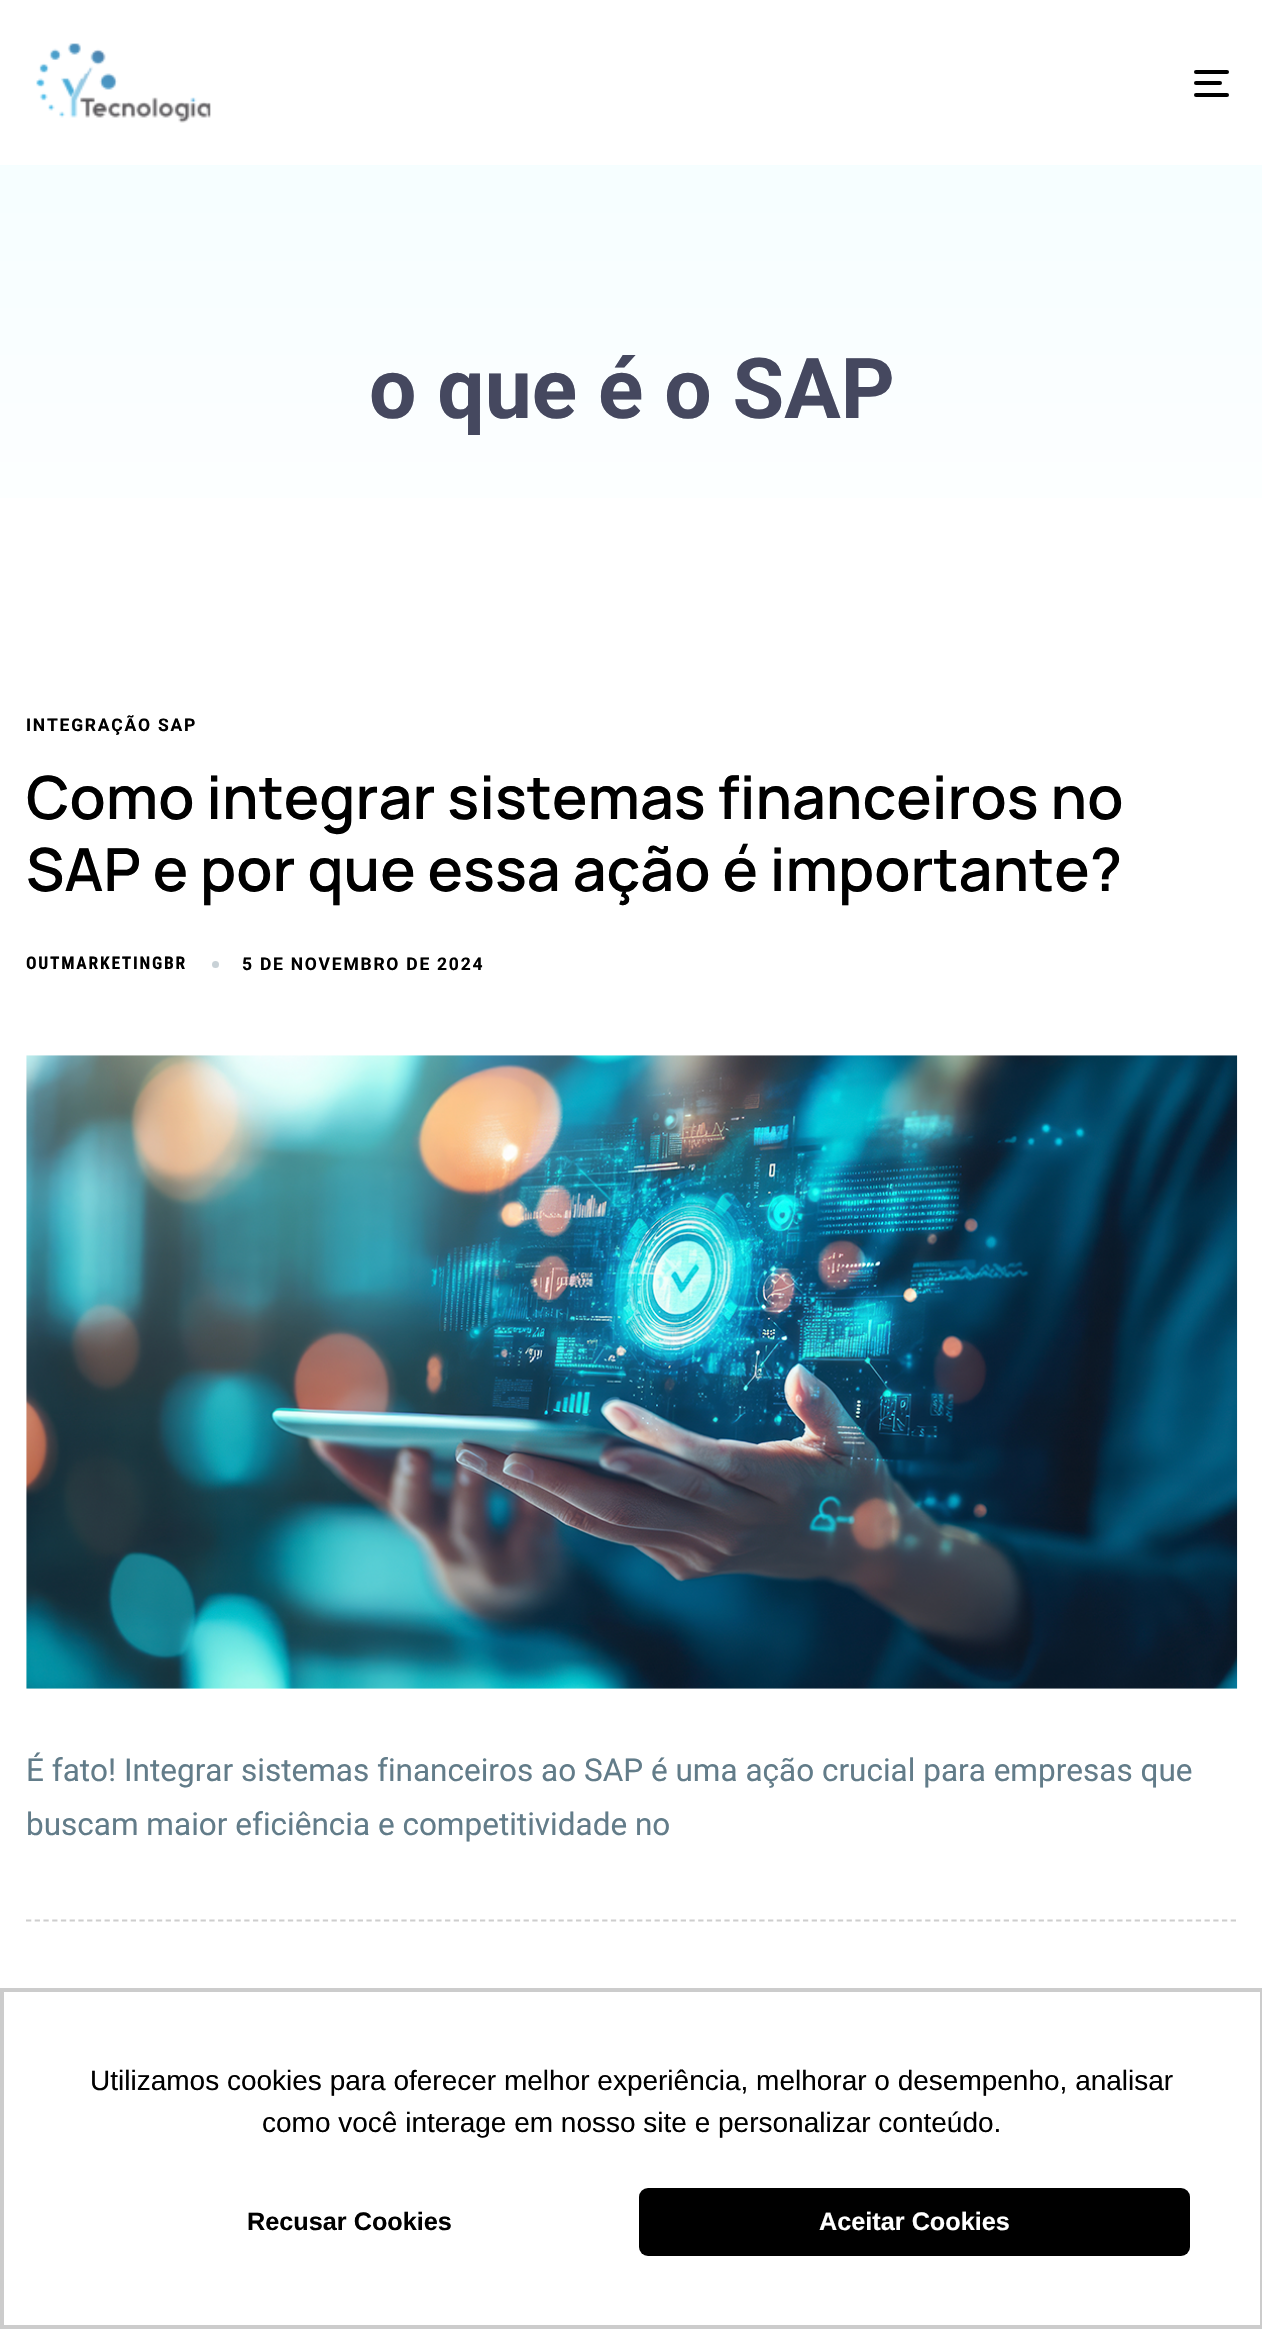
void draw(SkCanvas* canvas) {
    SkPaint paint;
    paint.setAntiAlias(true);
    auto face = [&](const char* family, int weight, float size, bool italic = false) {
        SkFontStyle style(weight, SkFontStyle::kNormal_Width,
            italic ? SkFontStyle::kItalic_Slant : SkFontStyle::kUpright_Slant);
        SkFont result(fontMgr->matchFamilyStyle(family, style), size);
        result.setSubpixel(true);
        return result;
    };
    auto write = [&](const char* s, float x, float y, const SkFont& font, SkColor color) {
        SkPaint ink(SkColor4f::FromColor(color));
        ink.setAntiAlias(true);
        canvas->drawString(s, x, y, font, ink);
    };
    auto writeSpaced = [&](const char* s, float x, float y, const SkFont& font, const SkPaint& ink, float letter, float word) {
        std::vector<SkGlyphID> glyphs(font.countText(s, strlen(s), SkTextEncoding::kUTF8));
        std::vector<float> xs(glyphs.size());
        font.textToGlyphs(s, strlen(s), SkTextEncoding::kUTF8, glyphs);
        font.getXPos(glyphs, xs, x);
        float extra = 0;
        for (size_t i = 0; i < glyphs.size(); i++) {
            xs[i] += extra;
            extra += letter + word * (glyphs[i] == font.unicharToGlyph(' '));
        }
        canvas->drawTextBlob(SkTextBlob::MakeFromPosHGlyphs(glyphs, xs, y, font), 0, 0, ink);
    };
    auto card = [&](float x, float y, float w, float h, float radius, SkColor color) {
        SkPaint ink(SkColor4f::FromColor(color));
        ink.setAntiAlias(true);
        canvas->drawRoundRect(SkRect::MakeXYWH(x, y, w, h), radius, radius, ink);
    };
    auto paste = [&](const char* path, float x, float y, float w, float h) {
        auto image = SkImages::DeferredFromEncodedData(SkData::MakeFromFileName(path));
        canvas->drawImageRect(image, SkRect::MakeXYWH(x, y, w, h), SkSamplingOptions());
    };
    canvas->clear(SK_ColorWHITE);
    {
        const SkColor colors[] = {SkColorSetRGB(242, 253, 255), SK_ColorWHITE};
        const float stops[] = {0, 1};
        const SkPoint ends[] = {{632, 0}, {632, 616}};
        paint.setShader(SkGradientShader::MakeLinear(ends, colors, stops, 2, SkTileMode::kClamp));
        paint.setAlpha(255);
    }
    canvas->drawRect(SkRect::MakeXYWH(0, 165, 1262, 333), paint);
    paste("pic1.png", 36, 43, 175, 80);
    card(1194, 70, 35, 4, 2, SK_ColorBLACK);
    card(1194, 81, 28, 4, 2, SK_ColorBLACK);
    card(1194, 93, 35, 4, 2, SK_ColorBLACK);
    auto kFont1 = face("Roboto", 700, 84);
    write("o que é o SAP", 369, 418, kFont1, SkColorSetRGB(69, 72, 95));
    paint.setStyle(SkPaint::kStroke_Style);
    paint.setStrokeWidth(1.8f);
    paint.setShader(nullptr);
    paint.setColor(SkColorSetRGB(206, 206, 206));
    paint.setPathEffect(SkDashPathEffect::Make({{5.25f, 3.48f}}, 0));
    canvas->drawPath(SkPathBuilder().moveTo(26, 1920.5f).lineTo(1237, 1920.5f).detach(), paint);
    paint.setPathEffect(nullptr);
    auto kFont2 = face("Roboto", 700, 17.5f);
    paint.setStyle(SkPaint::kFill_Style);
    paint.setColor(SK_ColorBLACK);
    writeSpaced("INTEGRAÇÃO SAP", 26, 731, kFont2, paint, 1.75f, 0);
    auto kFont3 = face("Manrope", 600, 59.5f);
    write("Como integrar sistemas financeiros no", 26, 819, kFont3, SK_ColorBLACK);
    write("SAP e por que essa ação é importante?", 26, 891, kFont3, SK_ColorBLACK);
    auto kFont4 = face("Roboto Condensed", 700, 17.5f);
    writeSpaced("OUTMARKETINGBR", 26, 969, kFont4, paint, 1.75f, 0);
    paint.setColor(SkColorSetRGB(200, 209, 214));
    canvas->drawCircle(215.5f, 964.5f, 3.5f, paint);
    paint.setColor(SK_ColorBLACK);
    writeSpaced("5 DE NOVEMBRO DE 2024", 242, 970, kFont2, paint, 1.75f, 0);
    paste("pic2.png", 26, 1055, 1212, 634);
    auto kFont5 = face("Roboto", 400, 31.5f);
    write("É fato! Integrar sistemas financeiros ao SAP é uma ação crucial para empresas que", 26, 1781, kFont5, SkColorSetRGB(98, 124, 137));
    write("buscam maior eficiência e competitividade no", 26, 1835, kFont5, SkColorSetRGB(98, 124, 137));
    paint.setStyle(SkPaint::kStroke_Style);
    paint.setStrokeWidth(4);
    paint.setColor(SkColorSetRGB(204, 204, 204));
    canvas->drawRect(SkRect::MakeXYWH(2, 1990, 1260, 337), paint);
    auto kFont6 = face("Liberation Sans", 400, 28);
    write("Utilizamos cookies para oferecer melhor experiência, melhorar o desempenho, analisar", 90, 2090, kFont6, SK_ColorBLACK);
    write("como você interage em nosso site e personalizar conteúdo.", 262, 2132, kFont6, SK_ColorBLACK);
    auto kFont7 = face("Liberation Sans", 700, 25.25f);
    write("Recusar Cookies", 247, 2230, kFont7, SK_ColorBLACK);
    card(639, 2188, 551, 68, 9, SK_ColorBLACK);
    write("Aceitar Cookies", 819, 2230, kFont7, SK_ColorWHITE);
}
